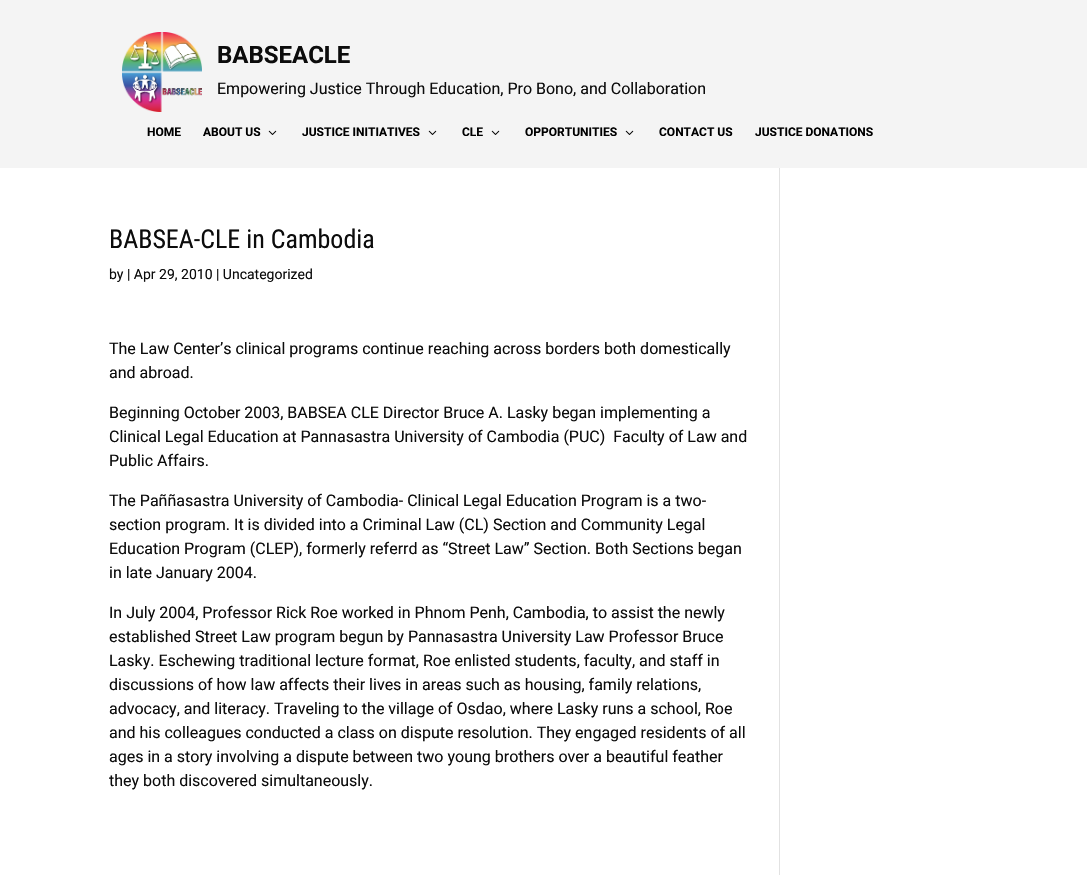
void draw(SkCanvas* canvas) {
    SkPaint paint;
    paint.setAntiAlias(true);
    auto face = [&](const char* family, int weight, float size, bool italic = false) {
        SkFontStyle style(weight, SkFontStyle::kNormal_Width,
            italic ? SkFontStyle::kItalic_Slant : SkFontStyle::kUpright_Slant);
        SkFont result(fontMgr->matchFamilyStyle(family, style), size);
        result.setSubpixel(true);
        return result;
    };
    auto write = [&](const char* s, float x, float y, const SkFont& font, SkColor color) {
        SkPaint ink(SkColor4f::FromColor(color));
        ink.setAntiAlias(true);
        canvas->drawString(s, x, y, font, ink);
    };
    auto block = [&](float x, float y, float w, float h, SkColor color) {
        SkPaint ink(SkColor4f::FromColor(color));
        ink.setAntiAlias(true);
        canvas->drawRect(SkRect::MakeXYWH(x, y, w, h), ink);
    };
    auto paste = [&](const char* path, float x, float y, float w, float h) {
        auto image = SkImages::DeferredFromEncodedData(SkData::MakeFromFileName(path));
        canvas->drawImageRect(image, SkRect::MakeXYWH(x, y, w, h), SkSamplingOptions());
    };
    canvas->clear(SK_ColorWHITE);
    block(0, 0, 1087, 168, SkColorSetRGB(244, 244, 244));
    paste("pic1.png", 122, 32, 80, 80);
    auto kFont1 = face("Roboto", 700, 24);
    write("BABSEACLE", 217, 63, kFont1, SkColorSetRGB(12, 12, 12));
    auto kFont2 = face("Roboto", 400, 16);
    write("Empowering Justice Through Education, Pro Bono, and Collaboration", 217, 94, kFont2, SkColorSetRGB(12, 12, 12));
    auto kFont3 = face("Roboto", 700, 12);
    write("HOME", 147, 136, kFont3, SK_ColorBLACK);
    write("ABOUT US", 203, 136, kFont3, SK_ColorBLACK);
    paste("pic2.png", 268, 130, 9, 5);
    write("JUSTICE INITIATIVES", 302, 136, kFont3, SK_ColorBLACK);
    paste("pic2.png", 428, 130, 9, 5);
    write("CLE", 462, 136, kFont3, SK_ColorBLACK);
    paste("pic2.png", 491, 130, 9, 5);
    write("OPPORTUNITIES", 525, 136, kFont3, SK_ColorBLACK);
    paste("pic2.png", 625, 130, 9, 5);
    write("CONTACT US", 659, 136, kFont3, SK_ColorBLACK);
    write("JUSTICE DONATIONS", 755, 136, kFont3, SK_ColorBLACK);
    auto kFont4 = face("Roboto Condensed", 400, 26);
    write("BABSEA-CLE in Cambodia", 109, 248, kFont4, SkColorSetRGB(12, 12, 12));
    auto kFont5 = face("Roboto", 400, 14);
    write("by | Apr 29, 2010 | Uncategorized", 109, 279, kFont5, SkColorSetRGB(12, 12, 12));
    write("The Law Center’s clinical programs continue reaching across borders both domestically", 109, 354, kFont2, SkColorSetRGB(12, 12, 12));
    write("and abroad.", 109, 378, kFont2, SkColorSetRGB(12, 12, 12));
    write("Beginning October 2003, BABSEA CLE Director Bruce A. Lasky began implementing a", 109, 418, kFont2, SkColorSetRGB(12, 12, 12));
    write("Clinical Legal Education at Pannasastra University of Cambodia (PUC)  Faculty of Law and", 109, 442, kFont2, SkColorSetRGB(12, 12, 12));
    write("Public Affairs.", 109, 466, kFont2, SkColorSetRGB(12, 12, 12));
    write("The Paññasastra University of Cambodia- Clinical Legal Education Program is a two-", 109, 506, kFont2, SkColorSetRGB(12, 12, 12));
    write("section program. It is divided into a Criminal Law (CL) Section and Community Legal", 109, 530, kFont2, SkColorSetRGB(12, 12, 12));
    write("Education Program (CLEP), formerly referrd as “Street Law” Section. Both Sections began", 109, 554, kFont2, SkColorSetRGB(12, 12, 12));
    write("in late January 2004.", 109, 578, kFont2, SkColorSetRGB(12, 12, 12));
    write("In July 2004, Professor Rick Roe worked in Phnom Penh, Cambodia, to assist the newly", 109, 618, kFont2, SkColorSetRGB(12, 12, 12));
    write("established Street Law program begun by Pannasastra University Law Professor Bruce", 109, 642, kFont2, SkColorSetRGB(12, 12, 12));
    write("Lasky. Eschewing traditional lecture format, Roe enlisted students, faculty, and staff in", 109, 666, kFont2, SkColorSetRGB(12, 12, 12));
    write("discussions of how law affects their lives in areas such as housing, family relations,", 109, 690, kFont2, SkColorSetRGB(12, 12, 12));
    write("advocacy, and literacy. Traveling to the village of Osdao, where Lasky runs a school, Roe", 109, 714, kFont2, SkColorSetRGB(12, 12, 12));
    write("and his colleagues conducted a class on dispute resolution. They engaged residents of all", 109, 738, kFont2, SkColorSetRGB(12, 12, 12));
    write("ages in a story involving a dispute between two young brothers over a beautiful feather", 109, 762, kFont2, SkColorSetRGB(12, 12, 12));
    write("they both discovered simultaneously.", 109, 786, kFont2, SkColorSetRGB(12, 12, 12));
    block(779, 168, 1, 707, SkColorSetRGB(226, 226, 226));
}
